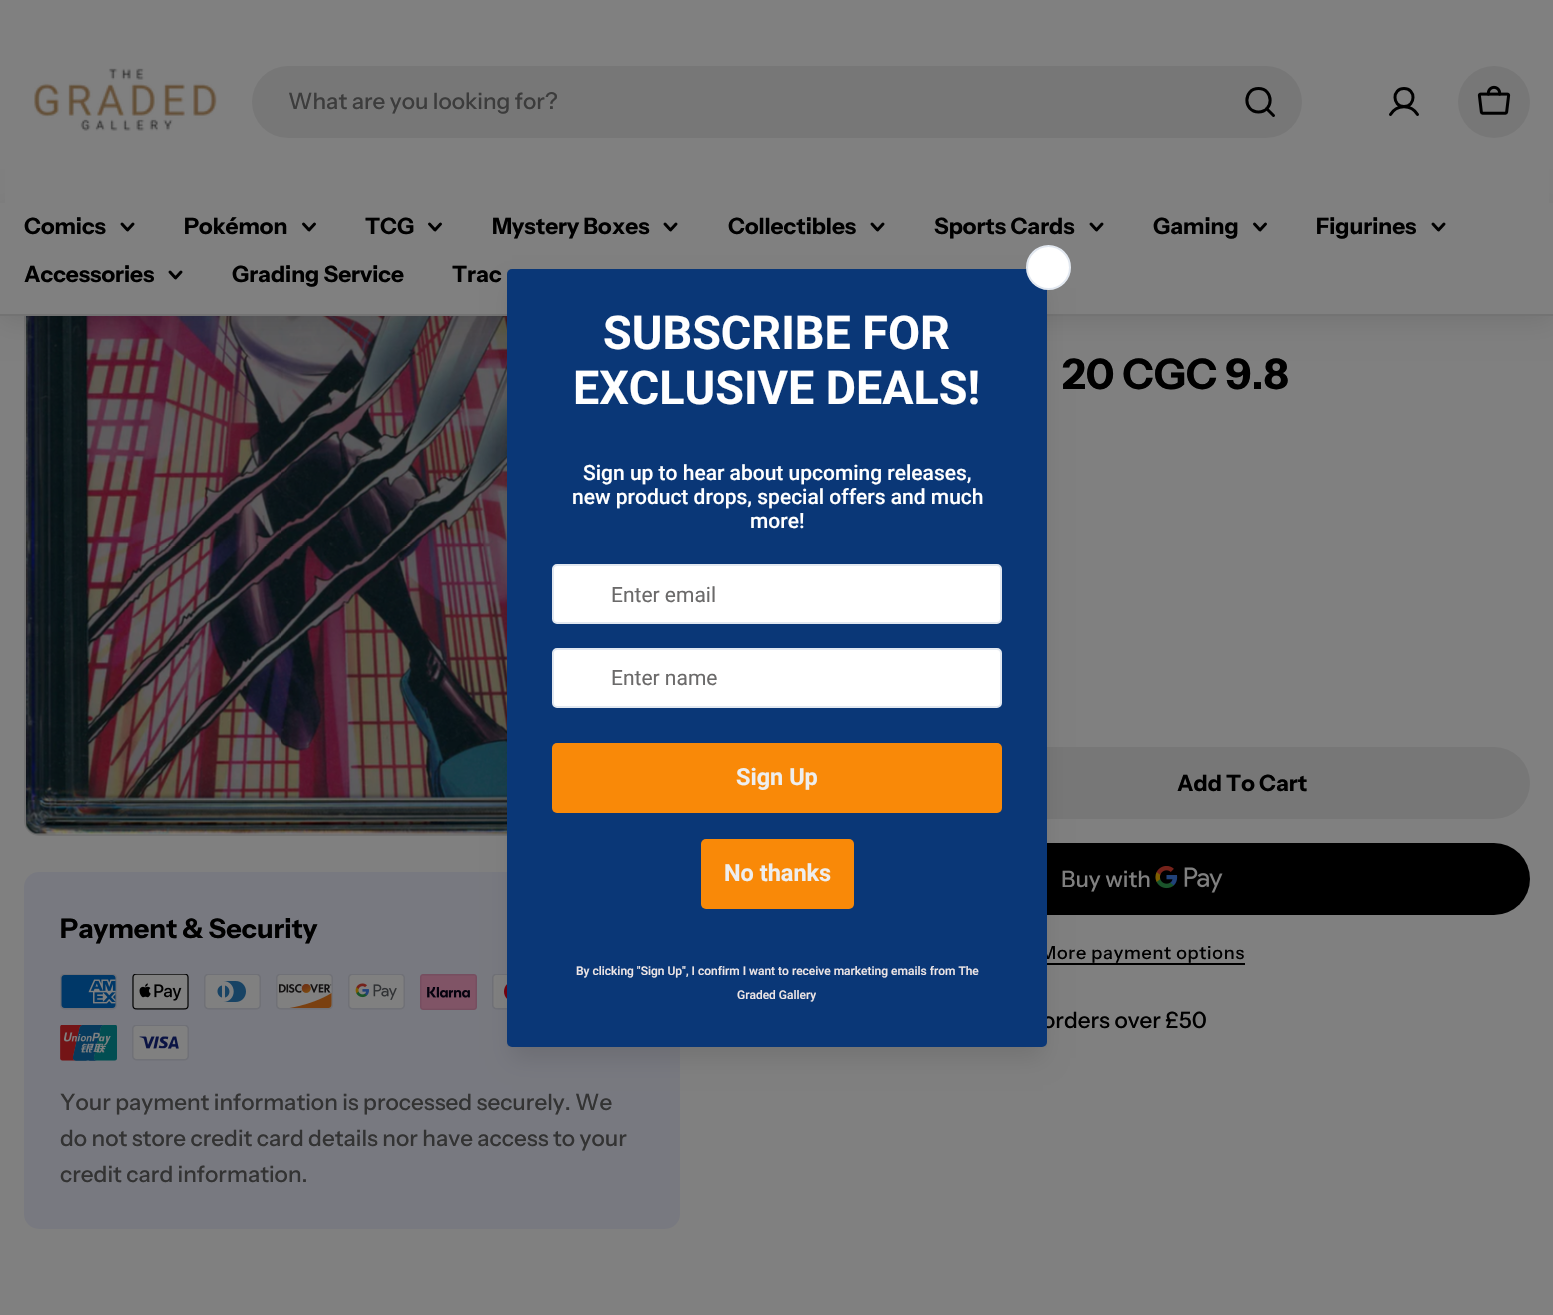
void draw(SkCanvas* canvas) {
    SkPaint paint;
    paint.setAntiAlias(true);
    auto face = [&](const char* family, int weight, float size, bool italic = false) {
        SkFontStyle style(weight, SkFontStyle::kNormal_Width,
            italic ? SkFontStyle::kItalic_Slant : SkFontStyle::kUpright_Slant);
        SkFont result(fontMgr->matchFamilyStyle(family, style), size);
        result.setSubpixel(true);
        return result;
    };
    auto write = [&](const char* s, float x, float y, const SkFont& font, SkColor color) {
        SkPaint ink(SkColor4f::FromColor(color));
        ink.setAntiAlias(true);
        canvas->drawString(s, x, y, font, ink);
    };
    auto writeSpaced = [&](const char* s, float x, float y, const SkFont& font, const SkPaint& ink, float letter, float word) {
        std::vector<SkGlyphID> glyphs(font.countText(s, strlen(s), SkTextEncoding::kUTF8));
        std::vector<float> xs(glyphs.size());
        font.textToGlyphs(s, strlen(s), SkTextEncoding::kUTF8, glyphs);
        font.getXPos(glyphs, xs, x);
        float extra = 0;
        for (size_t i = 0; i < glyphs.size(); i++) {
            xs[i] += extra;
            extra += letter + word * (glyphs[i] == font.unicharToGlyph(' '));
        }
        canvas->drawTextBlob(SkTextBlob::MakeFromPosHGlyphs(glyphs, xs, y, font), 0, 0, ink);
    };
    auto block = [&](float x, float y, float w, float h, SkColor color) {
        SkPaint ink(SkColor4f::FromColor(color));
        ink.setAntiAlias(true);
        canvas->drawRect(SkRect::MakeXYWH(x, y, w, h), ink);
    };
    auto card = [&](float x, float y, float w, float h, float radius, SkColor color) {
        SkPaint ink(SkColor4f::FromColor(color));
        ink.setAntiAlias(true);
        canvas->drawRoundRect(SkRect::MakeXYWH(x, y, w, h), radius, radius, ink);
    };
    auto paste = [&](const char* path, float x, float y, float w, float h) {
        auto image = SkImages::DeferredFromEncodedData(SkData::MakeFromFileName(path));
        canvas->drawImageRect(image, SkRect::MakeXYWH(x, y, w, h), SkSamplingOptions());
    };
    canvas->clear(SkColorSetRGB(128, 128, 128));
    paint.setStyle(SkPaint::kStroke_Style);
    paint.setStrokeWidth(2);
    paint.setColor(SkColorSetRGB(115, 115, 115));
    canvas->drawRoundRect(SkRect::MakeXYWH(25, -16, 654, 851), 14, 14, paint);
    paste("pic3.png", 26, 316, 481, 519);
    paint.setStyle(SkPaint::kFill_Style);
    paint.setColor(SkColorSetARGB(26, 0, 0, 0));
    paint.setMaskFilter(SkMaskFilter::MakeBlur(kNormal_SkBlurStyle, 13.5f));
    canvas->drawRect(SkRect::MakeXYWH(0, 209, 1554, 112), paint);
    paint.setMaskFilter(nullptr);
    block(5, 0, 1544, 203, SkColorSetRGB(128, 128, 128));
    paste("pic1.png", 34, 68, 183, 63);
    card(252, 66, 1050, 72, 36, SkColorSetRGB(119, 119, 119));
    auto kFont1 = face("Instrument Sans", 500, 22.5f);
    write("What are you looking for?", 288, 109, kFont1, SkColorSetRGB(60, 60, 60));
    paint.setStyle(SkPaint::kStroke_Style);
    paint.setStrokeWidth(3);
    paint.setStrokeCap(SkPaint::kRound_Cap);
    paint.setStrokeJoin(SkPaint::kRound_Join);
    paint.setColor(SK_ColorBLACK);
    canvas->drawPath(SkPathBuilder().moveTo(1258.5f, 112).cubicTo(1274, 112, 1274, 88.5f, 1258.5f, 88.5f).cubicTo(1243, 88.5f, 1243, 112, 1258.5f, 112).close().moveTo(1266.5f, 108.5f).lineTo(1273.5f, 115.5f).detach(), paint);
    canvas->drawPath(SkPathBuilder().moveTo(1404, 106.5f).cubicTo(1416, 106.5f, 1416, 88.5f, 1404, 88.5f).cubicTo(1392, 88.5f, 1392, 106.5f, 1404, 106.5f).close().moveTo(1390.5f, 114.5f).cubicTo(1396.5f, 104, 1411.5f, 104, 1417.5f, 114.5f).detach(), paint);
    paint.setStyle(SkPaint::kFill_Style);
    paint.setColor(SkColorSetRGB(119, 119, 119));
    canvas->drawCircle(1494, 102, 36, paint);
    paste("pic2.png", 1477, 85, 34, 30);
    block(0, 203, 1553, 111, SkColorSetRGB(128, 128, 128));
    block(0, 314, 1553, 2, SkColorSetRGB(115, 115, 115));
    auto kFont2 = face("Instrument Sans", 700, 22.5f);
    write("Comics", 24, 234, kFont2, SK_ColorBLACK);
    paint.setStyle(SkPaint::kStroke_Style);
    paint.setColor(SK_ColorBLACK);
    canvas->drawPath(SkPathBuilder().moveTo(133, 224).lineTo(127.5f, 230).lineTo(122, 224).detach(), paint);
    write("Pokémon", 184, 234, kFont2, SK_ColorBLACK);
    canvas->drawPath(SkPathBuilder().moveTo(314.5f, 224).lineTo(309, 230).lineTo(303.5f, 224).detach(), paint);
    write("TCG", 365, 234, kFont2, SK_ColorBLACK);
    canvas->drawPath(SkPathBuilder().moveTo(440.5f, 224).lineTo(435, 230).lineTo(429.5f, 224).detach(), paint);
    write("Mystery Boxes", 492, 234, kFont2, SK_ColorBLACK);
    canvas->drawPath(SkPathBuilder().moveTo(676, 224).lineTo(670.5f, 230).lineTo(665, 224).detach(), paint);
    write("Collectibles", 728, 234, kFont2, SK_ColorBLACK);
    canvas->drawPath(SkPathBuilder().moveTo(883, 224).lineTo(877.5f, 230).lineTo(872, 224).detach(), paint);
    write("Sports Cards", 934, 234, kFont2, SK_ColorBLACK);
    canvas->drawPath(SkPathBuilder().moveTo(1102, 224).lineTo(1096.5f, 230).lineTo(1091, 224).detach(), paint);
    write("Gaming", 1153, 234, kFont2, SK_ColorBLACK);
    canvas->drawPath(SkPathBuilder().moveTo(1265.5f, 224).lineTo(1260, 230).lineTo(1254.5f, 224).detach(), paint);
    write("Figurines", 1316, 234, kFont2, SK_ColorBLACK);
    canvas->drawPath(SkPathBuilder().moveTo(1444, 224).lineTo(1438.5f, 230).lineTo(1433, 224).detach(), paint);
    write("Accessories", 24, 282, kFont2, SK_ColorBLACK);
    canvas->drawPath(SkPathBuilder().moveTo(181, 272).lineTo(175.5f, 278).lineTo(170, 272).detach(), paint);
    write("Grading Service", 232, 282, kFont2, SK_ColorBLACK);
    write("Trac", 452, 282, kFont2, SK_ColorBLACK);
    card(24, 872, 656, 357, 15, SkColorSetRGB(120, 121, 128));
    auto kFont3 = face("Instrument Sans", 700, 27);
    write("Payment & Security", 60, 938, kFont3, SK_ColorBLACK);
    paste("pic4.png", 60, 974, 57, 36);
    paste("pic5.png", 132, 974, 57, 36);
    paste("pic6.png", 204, 974, 57, 36);
    paste("pic7.png", 276, 974, 57, 36);
    paste("pic8.png", 348, 974, 57, 36);
    paste("pic9.png", 420, 974, 57, 36);
    paste("pic10.png", 492, 974, 15, 36);
    paste("pic11.png", 60, 1025, 57, 36);
    paste("pic12.png", 132, 1025, 57, 36);
    write("Your payment information is processed securely. We", 60, 1110, kFont1, SkColorSetRGB(51, 51, 51));
    write("do not store credit card details nor have access to your", 60, 1146, kFont1, SkColorSetRGB(51, 51, 51));
    write("credit card information.", 60, 1182, kFont1, SkColorSetRGB(51, 51, 51));
    auto kFont4 = face("Instrument Sans", 700, 42);
    write("20 CGC 9.8", 1062, 389, kFont4, SK_ColorBLACK);
    card(954, 747, 576, 72, 36, SkColorSetRGB(119, 119, 119));
    write("Add To Cart", 1177, 791, kFont2, SK_ColorBLACK);
    card(755, 843, 775, 72, 36, SK_ColorBLACK);
    write("Buy with", 1061, 887, kFont1, SkColorSetRGB(128, 128, 128));
    paste("pic13.png", 1155, 866, 68, 27);
    auto kFont5 = face("Instrument Sans", 500, 18);
    paint.setStyle(SkPaint::kFill_Style);
    writeSpaced("More payment options", 1040, 959, kFont5, paint, 0.75f, 0);
    block(1040, 963, 205, 2, SK_ColorBLACK);
    write("orders over £50", 1042, 1028, kFont1, SK_ColorBLACK);
    paint.setColor(SkColorSetARGB(26, 0, 0, 0));
    paint.setMaskFilter(SkMaskFilter::MakeBlur(kNormal_SkBlurStyle, 11));
    canvas->drawRect(SkRect::MakeXYWH(512, 288, 531, 770), paint);
    paint.setMaskFilter(nullptr);
    canvas->save();
    canvas->clipRect(SkRect::MakeXYWH(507, 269, 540, 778));
    paint.setColor(SkColorSetARGB(31, 0, 0, 0));
    paint.setMaskFilter(SkMaskFilter::MakeBlur(kNormal_SkBlurStyle, 15));
    canvas->drawRect(SkRect::MakeXYWH(512, 273, 531, 770), paint);
    paint.setMaskFilter(nullptr);
    canvas->restore();
    card(507, 269, 540, 778, 5, SkColorSetRGB(10, 55, 119));
    paint.setColor(SK_ColorWHITE);
    canvas->drawCircle(1048.5f, 267.5f, 21.5f, paint);
    paint.setStyle(SkPaint::kStroke_Style);
    paint.setStrokeWidth(2);
    paint.setStrokeCap(SkPaint::kButt_Cap);
    paint.setStrokeJoin(SkPaint::kMiter_Join);
    paint.setColor(SkColorSetRGB(226, 232, 240));
    canvas->drawCircle(1048.5f, 267.5f, 21.5f, paint);
    auto kFont6 = face("Roboto", 700, 46.6f);
    write("SUBSCRIBE FOR", 603, 349, kFont6, SK_ColorWHITE);
    write("EXCLUSIVE DEALS!", 573, 404, kFont6, SK_ColorWHITE);
    auto kFont7 = face("Roboto", 500, 21);
    write("Sign up to hear about upcoming releases,", 583, 480, kFont7, SK_ColorWHITE);
    write("new product drops, special offers and much", 572, 504, kFont7, SK_ColorWHITE);
    write("more!", 750, 528, kFont7, SK_ColorWHITE);
    paint.setStyle(SkPaint::kFill_Style);
    paint.setColor(SK_ColorWHITE);
    canvas->drawRoundRect(SkRect::MakeXYWH(553, 565, 448, 58), 4, 4, paint);
    paint.setStyle(SkPaint::kStroke_Style);
    paint.setColor(SkColorSetRGB(226, 232, 240));
    canvas->drawRoundRect(SkRect::MakeXYWH(553, 565, 448, 58), 4, 4, paint);
    auto kFont8 = face("Roboto", 400, 21);
    write("Enter email", 611, 602, kFont8, SkColorSetRGB(107, 106, 106));
    paint.setStyle(SkPaint::kFill_Style);
    paint.setColor(SK_ColorWHITE);
    canvas->drawRoundRect(SkRect::MakeXYWH(553, 649, 448, 58), 4, 4, paint);
    paint.setStyle(SkPaint::kStroke_Style);
    paint.setColor(SkColorSetRGB(226, 232, 240));
    canvas->drawRoundRect(SkRect::MakeXYWH(553, 649, 448, 58), 4, 4, paint);
    write("Enter name", 611, 685, kFont8, SkColorSetRGB(107, 106, 106));
    card(552, 743, 450, 70, 5, SkColorSetRGB(249, 137, 8));
    auto kFont9 = face("Roboto", 700, 23.5f);
    write("Sign Up", 736, 785, kFont9, SkColorSetRGB(238, 238, 238));
    card(701, 839, 153, 70, 5, SkColorSetRGB(249, 137, 8));
    write("No thanks", 724, 881, kFont9, SkColorSetRGB(238, 238, 238));
    auto kFont10 = face("Roboto", 500, 12);
    write("By clicking \"Sign Up\", I confirm I want to receive marketing emails from The", 576, 975, kFont10, SkColorSetRGB(238, 230, 230));
    write("Graded Gallery", 737, 999, kFont10, SkColorSetRGB(238, 230, 230));
}
